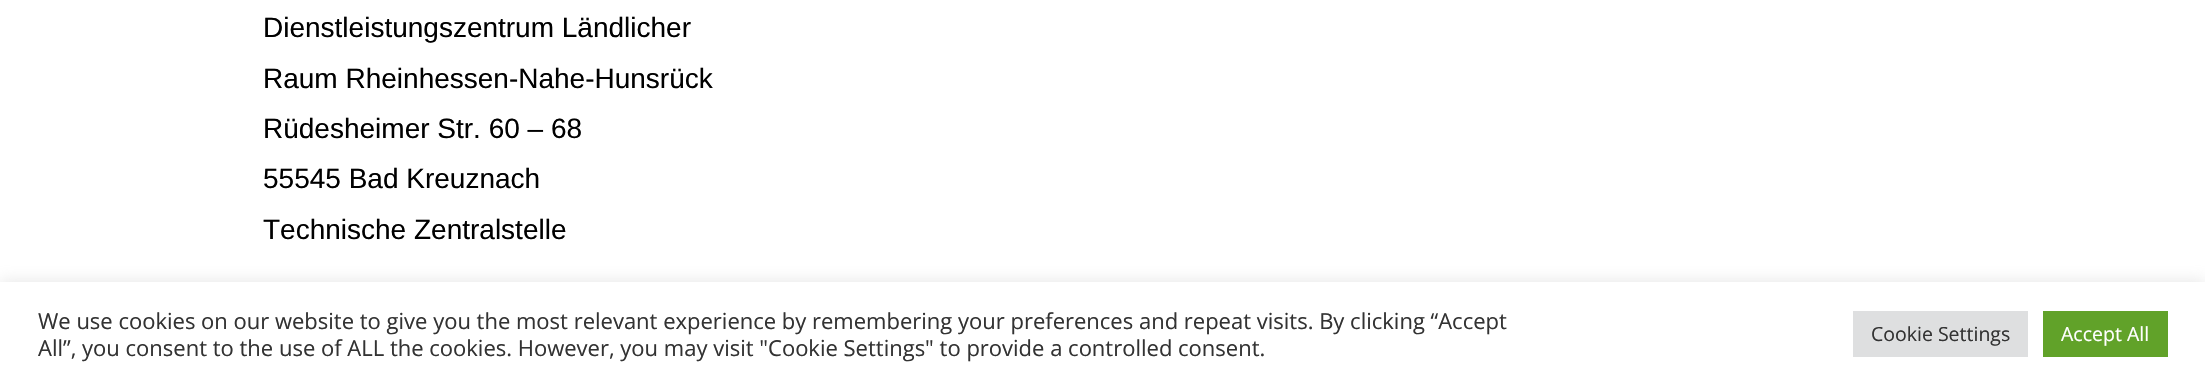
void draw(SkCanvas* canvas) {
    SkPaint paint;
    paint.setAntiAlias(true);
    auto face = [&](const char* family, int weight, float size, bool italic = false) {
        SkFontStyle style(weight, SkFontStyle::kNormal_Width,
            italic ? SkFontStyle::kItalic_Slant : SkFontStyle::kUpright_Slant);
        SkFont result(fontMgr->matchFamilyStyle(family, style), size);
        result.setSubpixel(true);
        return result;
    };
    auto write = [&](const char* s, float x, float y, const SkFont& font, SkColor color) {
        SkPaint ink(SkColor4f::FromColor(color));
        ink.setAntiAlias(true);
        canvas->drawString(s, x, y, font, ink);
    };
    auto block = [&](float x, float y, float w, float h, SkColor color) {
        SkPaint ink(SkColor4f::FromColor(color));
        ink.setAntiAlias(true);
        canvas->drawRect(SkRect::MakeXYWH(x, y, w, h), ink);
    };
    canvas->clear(SK_ColorWHITE);
    auto kFont1 = face("Liberation Sans", 400, 28);
    write("Dienstleistungszentrum Ländlicher", 263, 37, kFont1, SK_ColorBLACK);
    write("Raum Rheinhessen-Nahe-Hunsrück", 263, 88, kFont1, SK_ColorBLACK);
    write("Rüdesheimer Str. 60 – 68", 263, 138, kFont1, SK_ColorBLACK);
    write("55545 Bad Kreuznach", 263, 188, kFont1, SK_ColorBLACK);
    write("Technische Zentralstelle", 263, 239, kFont1, SK_ColorBLACK);
    paint.setColor(SkColorSetARGB(77, 172, 171, 171));
    paint.setMaskFilter(SkMaskFilter::MakeBlur(kNormal_SkBlurStyle, 7.5f));
    canvas->drawRect(SkRect::MakeXYWH(0, 281, 2205, 103), paint);
    paint.setMaskFilter(nullptr);
    block(0, 282, 2205, 103, SK_ColorWHITE);
    auto kFont2 = face("Open Sans", 400, 22);
    write("We use cookies on our website to give you the most relevant experience by remembering your preferences and repeat visits. By clicking “Accept", 38, 329, kFont2, SkColorSetRGB(51, 51, 51));
    write("All”, you consent to the use of ALL the cookies. However, you may visit \"Cookie Settings\" to provide a controlled consent.", 38, 356, kFont2, SkColorSetRGB(51, 51, 51));
    block(1853, 311, 175, 46, SkColorSetRGB(222, 223, 224));
    auto kFont3 = face("Open Sans", 400, 19.5f);
    write("Cookie Settings", 1871, 341, kFont3, SkColorSetRGB(51, 51, 51));
    block(2043, 311, 125, 46, SkColorSetRGB(97, 162, 41));
    write("Accept All", 2061, 341, kFont3, SK_ColorWHITE);
}
